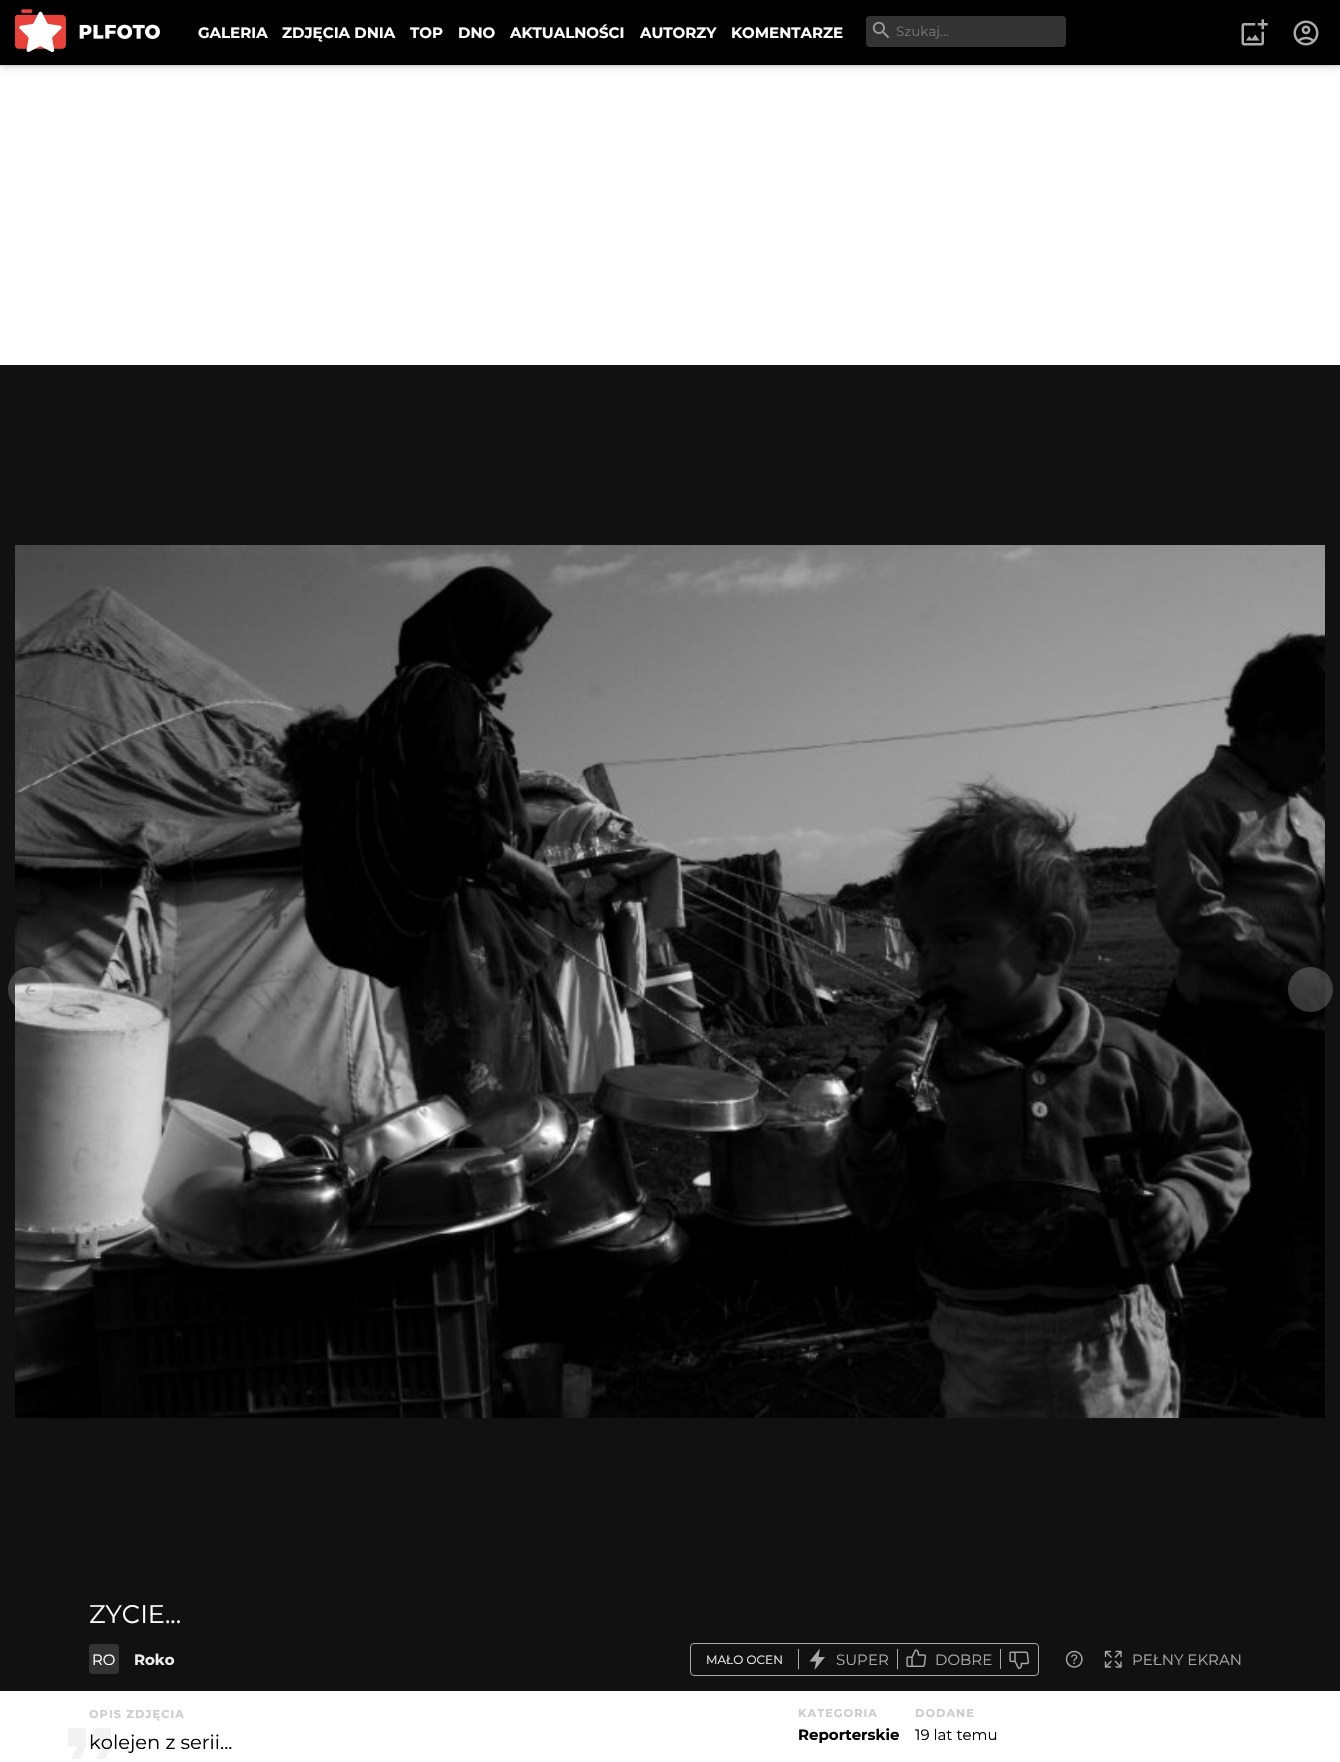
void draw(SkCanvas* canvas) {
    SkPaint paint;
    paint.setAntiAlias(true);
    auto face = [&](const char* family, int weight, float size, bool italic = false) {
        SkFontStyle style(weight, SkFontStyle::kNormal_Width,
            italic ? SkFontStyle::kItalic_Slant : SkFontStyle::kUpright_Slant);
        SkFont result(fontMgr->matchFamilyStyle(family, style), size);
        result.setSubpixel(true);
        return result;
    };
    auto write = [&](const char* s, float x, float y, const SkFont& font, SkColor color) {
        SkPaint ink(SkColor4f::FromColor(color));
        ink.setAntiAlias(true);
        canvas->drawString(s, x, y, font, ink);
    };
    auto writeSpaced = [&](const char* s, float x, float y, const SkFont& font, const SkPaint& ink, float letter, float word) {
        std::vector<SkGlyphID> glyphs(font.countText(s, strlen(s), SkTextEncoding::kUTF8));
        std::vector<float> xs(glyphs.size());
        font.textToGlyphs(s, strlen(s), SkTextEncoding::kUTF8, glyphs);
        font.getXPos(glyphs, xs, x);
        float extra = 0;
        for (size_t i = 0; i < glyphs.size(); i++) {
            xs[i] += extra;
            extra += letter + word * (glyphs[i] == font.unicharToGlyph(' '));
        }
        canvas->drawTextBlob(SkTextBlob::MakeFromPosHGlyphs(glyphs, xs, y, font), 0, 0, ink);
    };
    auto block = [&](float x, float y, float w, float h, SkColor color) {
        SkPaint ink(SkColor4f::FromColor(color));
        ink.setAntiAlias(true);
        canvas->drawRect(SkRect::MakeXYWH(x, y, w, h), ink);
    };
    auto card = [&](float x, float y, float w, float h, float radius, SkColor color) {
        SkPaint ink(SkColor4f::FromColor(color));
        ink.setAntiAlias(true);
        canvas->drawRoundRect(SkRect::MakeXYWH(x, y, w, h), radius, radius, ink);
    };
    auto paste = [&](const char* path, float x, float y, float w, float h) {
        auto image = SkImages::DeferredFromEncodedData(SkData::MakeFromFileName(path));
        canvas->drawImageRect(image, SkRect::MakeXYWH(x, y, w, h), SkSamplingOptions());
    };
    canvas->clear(SK_ColorWHITE);
    paint.setColor(SkColorSetARGB(28, 0, 0, 0));
    paint.setMaskFilter(SkMaskFilter::MakeBlur(kNormal_SkBlurStyle, 1));
    canvas->drawRect(SkRect::MakeXYWH(0, 1, 1340, 65), paint);
    paint.setMaskFilter(nullptr);
    paint.setColor(SkColorSetARGB(33, 0, 0, 0));
    paint.setMaskFilter(SkMaskFilter::MakeBlur(kNormal_SkBlurStyle, 3.5f));
    canvas->drawRect(SkRect::MakeXYWH(0, 3, 1340, 65), paint);
    paint.setMaskFilter(nullptr);
    block(0, 0, 1340, 65, SK_ColorBLACK);
    paste("pic1.png", 15, 9, 145, 43);
    auto kFont1 = face("Montserrat", 700, 15);
    write("GALERIA", 198, 38, kFont1, SK_ColorWHITE);
    write("ZDJĘCIA DNIA", 282, 38, kFont1, SK_ColorWHITE);
    write("TOP", 410, 38, kFont1, SK_ColorWHITE);
    write("DNO", 458, 38, kFont1, SK_ColorWHITE);
    write("AKTUALNOŚCI", 510, 38, kFont1, SK_ColorWHITE);
    write("AUTORZY", 640, 38, kFont1, SK_ColorWHITE);
    write("KOMENTARZE", 731, 38, kFont1, SK_ColorWHITE);
    card(866, 16, 200, 31, 4, SkColorSetRGB(51, 51, 51));
    paste("pic2.png", 872, 21, 18, 18);
    auto kFont2 = face("Montserrat", 400, 13.5f);
    write("Szukaj...", 896, 36, kFont2, SkColorSetRGB(117, 117, 117));
    paste("pic3.png", 1241, 19, 27, 27);
    paste("pic4.png", 1293, 20, 26, 26);
    block(0, 365, 1340, 1326, SkColorSetRGB(17, 17, 17));
    paste("pic5.png", 15, 545, 1310, 873);
    paint.setColor(SkColorSetARGB(51, 255, 255, 255));
    canvas->drawCircle(30.5f, 989.5f, 22.5f, paint);
    auto kFont3 = face("Montserrat", 700, 22);
    write("←", 23, 997, kFont3, SkColorSetRGB(168, 168, 168));
    canvas->drawCircle(1310.5f, 989.5f, 22.5f, paint);
    auto kFont4 = face("Montserrat", 400, 25.5f);
    write("ZYCIE...", 89, 1623, kFont4, SK_ColorWHITE);
    card(89, 1644, 30, 30, 4, SkColorSetRGB(51, 51, 51));
    auto kFont5 = face("Montserrat", 400, 15);
    write("RO", 92, 1665, kFont5, SK_ColorWHITE);
    write("Roko", 134, 1665, kFont1, SkColorSetRGB(238, 238, 238));
    paint.setStyle(SkPaint::kStroke_Style);
    paint.setStrokeWidth(1);
    paint.setColor(SkColorSetRGB(170, 170, 170));
    canvas->drawRoundRect(SkRect::MakeXYWH(690.5f, 1643.5f, 348, 32), 3.5f, 3.5f, paint);
    auto kFont6 = face("Montserrat", 400, 12);
    write("MAŁO OCEN", 706, 1664, kFont6, SkColorSetRGB(238, 238, 238));
    block(798, 1649, 1, 20, SkColorSetRGB(170, 170, 170));
    paint.setStyle(SkPaint::kFill_Style);
    canvas->drawPath(SkPathBuilder().moveTo(825, 1657).lineTo(818.5f, 1657).lineTo(820, 1648.5f).lineTo(809.5f, 1661.5f).lineTo(816, 1661.5f).lineTo(814.5f, 1670).close().detach(), paint);
    write("SUPER", 836, 1665, kFont5, SkColorSetRGB(168, 168, 168));
    block(897, 1649, 1, 20, SkColorSetRGB(170, 170, 170));
    paste("pic6.png", 906, 1649, 21, 18);
    write("DOBRE", 935, 1665, kFont5, SkColorSetRGB(168, 168, 168));
    block(1000, 1649, 1, 20, SkColorSetRGB(170, 170, 170));
    paste("pic7.png", 1009, 1651, 21, 19);
    paste("pic8.png", 1065, 1650, 18, 18);
    paste("pic9.png", 1104, 1650, 18, 18);
    write("PEŁNY EKRAN", 1132, 1665, kFont5, SkColorSetRGB(168, 168, 168));
    auto kFont7 = face("Montserrat", 700, 11.25f);
    paint.setColor(SkColorSetRGB(204, 204, 204));
    writeSpaced("OPIS ZDJĘCIA", 89, 1718, kFont7, paint, 1.1f, 0);
    paint.setColor(SkColorSetARGB(13, 0, 0, 0));
    canvas->drawPath(SkPathBuilder().moveTo(71, 1759).lineTo(80, 1759).lineTo(86, 1747).lineTo(86, 1728).lineTo(68, 1728).lineTo(68, 1747).lineTo(77, 1747).close().moveTo(96, 1759).lineTo(105, 1759).lineTo(111, 1747).lineTo(111, 1728).lineTo(93, 1728).lineTo(93, 1747).lineTo(102, 1747).close().detach(), paint);
    auto kFont8 = face("Montserrat", 400, 19.5f);
    write("kolejen z serii...", 89, 1749, kFont8, SK_ColorBLACK);
    paint.setColor(SkColorSetRGB(204, 204, 204));
    writeSpaced("KATEGORIA", 798, 1717, kFont7, paint, 1.1f, 0);
    write("Reporterskie", 798, 1740, kFont1, SK_ColorBLACK);
    writeSpaced("DODANE", 915, 1717, kFont7, paint, 1.1f, 0);
    write("19 lat temu", 915, 1740, kFont5, SK_ColorBLACK);
}
